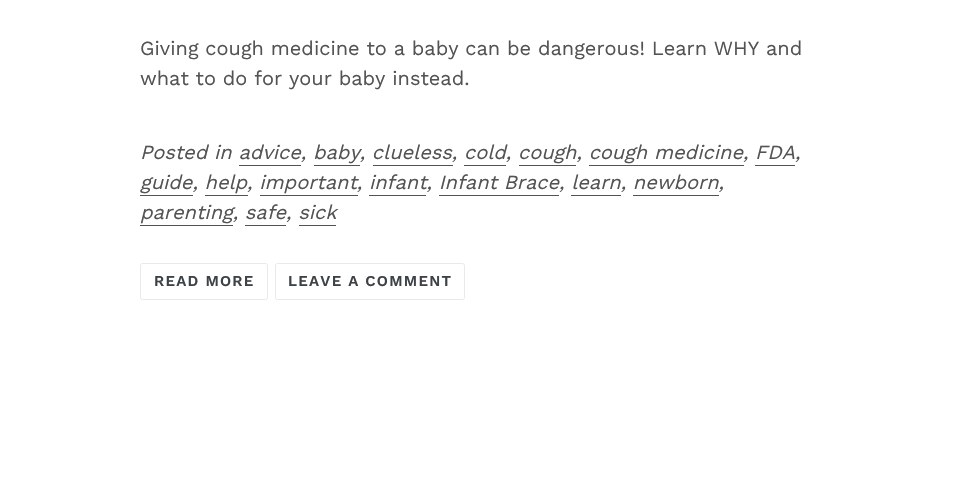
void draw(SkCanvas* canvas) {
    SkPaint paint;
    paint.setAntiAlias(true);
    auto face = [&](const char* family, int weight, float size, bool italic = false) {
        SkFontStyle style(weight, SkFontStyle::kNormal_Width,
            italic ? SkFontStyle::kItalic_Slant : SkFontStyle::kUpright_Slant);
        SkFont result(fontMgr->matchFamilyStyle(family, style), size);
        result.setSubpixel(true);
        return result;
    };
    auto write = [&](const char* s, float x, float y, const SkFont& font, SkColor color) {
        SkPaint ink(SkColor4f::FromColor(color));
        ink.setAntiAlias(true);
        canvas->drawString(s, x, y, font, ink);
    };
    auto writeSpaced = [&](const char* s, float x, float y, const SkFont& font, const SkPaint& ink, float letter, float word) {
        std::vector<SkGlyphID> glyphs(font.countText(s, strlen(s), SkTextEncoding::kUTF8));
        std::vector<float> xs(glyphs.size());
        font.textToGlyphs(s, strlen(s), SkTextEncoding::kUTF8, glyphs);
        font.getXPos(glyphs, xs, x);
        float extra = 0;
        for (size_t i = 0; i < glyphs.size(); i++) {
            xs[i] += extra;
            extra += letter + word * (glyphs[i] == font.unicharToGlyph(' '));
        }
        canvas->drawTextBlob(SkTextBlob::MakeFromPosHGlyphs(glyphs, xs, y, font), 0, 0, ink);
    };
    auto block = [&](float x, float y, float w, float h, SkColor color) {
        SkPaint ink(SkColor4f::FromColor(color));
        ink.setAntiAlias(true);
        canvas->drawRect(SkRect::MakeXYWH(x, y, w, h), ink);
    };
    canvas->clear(SK_ColorWHITE);
    auto kFont1 = face("Work Sans", 400, 20);
    write("Giving cough medicine to a baby can be dangerous! Learn WHY and", 140, 55, kFont1, SkColorSetRGB(82, 83, 83));
    write("what to do for your baby instead.", 140, 85, kFont1, SkColorSetRGB(82, 83, 83));
    auto kFont2 = face("Work Sans", 400, 20, true);
    write("Posted in advice, baby, clueless, cold, cough, cough medicine, FDA,", 140, 159, kFont2, SkColorSetRGB(82, 83, 83));
    block(239, 165, 62, 1, SkColorSetRGB(82, 83, 83));
    block(314, 165, 46, 1, SkColorSetRGB(82, 83, 83));
    block(373, 165, 80, 1, SkColorSetRGB(82, 83, 83));
    block(464, 165, 42, 1, SkColorSetRGB(82, 83, 83));
    block(519, 165, 57, 1, SkColorSetRGB(82, 83, 83));
    block(589, 165, 155, 1, SkColorSetRGB(82, 83, 83));
    block(755, 165, 40, 1, SkColorSetRGB(82, 83, 83));
    write("guide, help, important, infant, Infant Brace, learn, newborn,", 140, 189, kFont2, SkColorSetRGB(82, 83, 83));
    block(140, 195, 53, 1, SkColorSetRGB(82, 83, 83));
    block(205, 195, 43, 1, SkColorSetRGB(82, 83, 83));
    block(260, 195, 98, 1, SkColorSetRGB(82, 83, 83));
    block(369, 195, 57, 1, SkColorSetRGB(82, 83, 83));
    block(439, 195, 120, 1, SkColorSetRGB(82, 83, 83));
    block(571, 195, 50, 1, SkColorSetRGB(82, 83, 83));
    block(633, 195, 86, 1, SkColorSetRGB(82, 83, 83));
    write("parenting, safe, sick", 140, 219, kFont2, SkColorSetRGB(82, 83, 83));
    block(140, 225, 93, 1, SkColorSetRGB(82, 83, 83));
    block(245, 225, 41, 1, SkColorSetRGB(82, 83, 83));
    block(299, 225, 37, 1, SkColorSetRGB(82, 83, 83));
    paint.setStyle(SkPaint::kStroke_Style);
    paint.setStrokeWidth(1);
    paint.setColor(SkColorSetRGB(232, 233, 235));
    canvas->drawRoundRect(SkRect::MakeXYWH(140.5f, 263.5f, 127, 36), 2, 2, paint);
    auto kFont3 = face("Work Sans", 600, 15);
    paint.setStyle(SkPaint::kFill_Style);
    paint.setColor(SkColorSetRGB(61, 66, 70));
    writeSpaced("READ MORE", 154, 286, kFont3, paint, 1.25f, 0);
    paint.setStyle(SkPaint::kStroke_Style);
    paint.setColor(SkColorSetRGB(232, 233, 235));
    canvas->drawRoundRect(SkRect::MakeXYWH(275.5f, 263.5f, 189, 36), 2, 2, paint);
    paint.setStyle(SkPaint::kFill_Style);
    paint.setColor(SkColorSetRGB(61, 66, 70));
    writeSpaced("LEAVE A COMMENT", 288, 286, kFont3, paint, 1.25f, 0);
}
